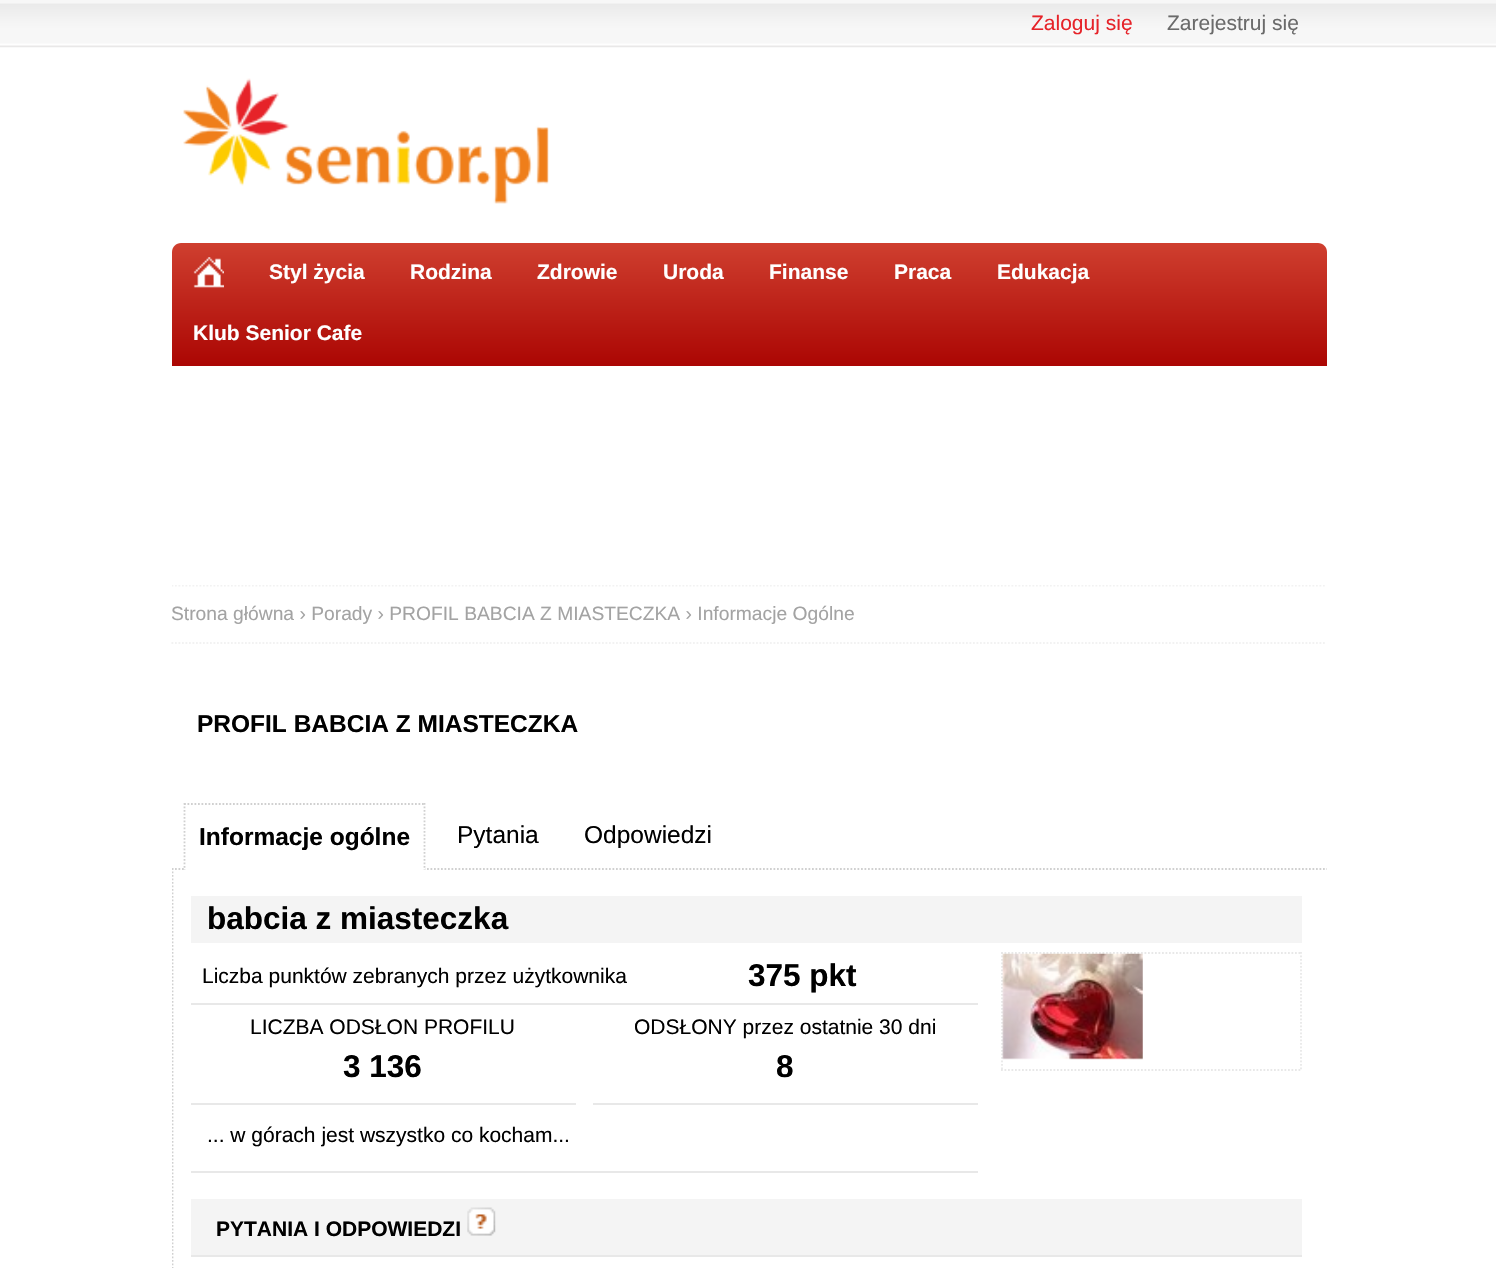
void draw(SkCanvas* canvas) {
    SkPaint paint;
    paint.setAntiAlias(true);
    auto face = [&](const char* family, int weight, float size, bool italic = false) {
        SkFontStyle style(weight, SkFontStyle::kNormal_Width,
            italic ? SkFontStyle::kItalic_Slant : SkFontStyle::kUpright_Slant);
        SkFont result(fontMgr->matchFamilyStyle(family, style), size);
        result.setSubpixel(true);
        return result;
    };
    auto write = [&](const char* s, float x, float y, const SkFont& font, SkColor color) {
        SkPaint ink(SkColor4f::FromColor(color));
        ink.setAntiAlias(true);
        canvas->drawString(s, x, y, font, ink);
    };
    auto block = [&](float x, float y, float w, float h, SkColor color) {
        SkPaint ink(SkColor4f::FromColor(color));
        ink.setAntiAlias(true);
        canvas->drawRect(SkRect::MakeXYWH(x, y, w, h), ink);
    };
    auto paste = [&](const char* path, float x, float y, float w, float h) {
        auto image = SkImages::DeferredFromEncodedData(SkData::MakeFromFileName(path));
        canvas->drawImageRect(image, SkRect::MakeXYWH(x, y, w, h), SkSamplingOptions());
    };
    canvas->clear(SK_ColorWHITE);
    paste("pic1.png", 0, 0, 1496, 48);
    auto kFont1 = face("Liberation Sans", 400, 21);
    write("Zaloguj się", 1031, 30, kFont1, SkColorSetRGB(230, 35, 41));
    write("Zarejestruj się", 1167, 30, kFont1, SkColorSetRGB(106, 106, 106));
    paste("pic2.png", 183, 78, 366, 126);
    {
        const SkColor colors[] = {SkColorSetRGB(207, 63, 47), SkColorSetRGB(171, 6, 3)};
        const float stops[] = {0, 1};
        const SkPoint ends[] = {{749, 243}, {749, 366}};
        paint.setShader(SkGradientShader::MakeLinear(ends, colors, stops, 2, SkTileMode::kClamp));
        paint.setAlpha(255);
    }
    canvas->drawPath(SkPathBuilder().moveTo(181, 243).lineTo(1318, 243).cubicTo(1323, 243, 1327, 247, 1327, 252).lineTo(1327, 366).lineTo(172, 366).lineTo(172, 252).cubicTo(172, 247, 176, 243, 181, 243).close().detach(), paint);
    paste("pic3.png", 193, 257, 31, 31);
    auto kFont2 = face("Liberation Sans", 700, 21);
    write("Styl życia", 269, 279, kFont2, SK_ColorWHITE);
    write("Rodzina", 410, 279, kFont2, SK_ColorWHITE);
    write("Zdrowie", 537, 279, kFont2, SK_ColorWHITE);
    write("Uroda", 663, 279, kFont2, SK_ColorWHITE);
    write("Finanse", 769, 279, kFont2, SK_ColorWHITE);
    write("Praca", 894, 279, kFont2, SK_ColorWHITE);
    write("Edukacja", 997, 279, kFont2, SK_ColorWHITE);
    write("Klub Senior Cafe", 193, 340, kFont2, SK_ColorWHITE);
    canvas->save();
    canvas->clipRect(SkRect::MakeXYWH(172, 585, 1155, 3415));
    paint.setStyle(SkPaint::kStroke_Style);
    paint.setStrokeWidth(1.8f);
    paint.setShader(nullptr);
    paint.setColor(SkColorSetRGB(242, 242, 242));
    paint.setPathEffect(SkDashPathEffect::Make({{1.75f, 1.75f}}, 0));
    canvas->drawPath(SkPathBuilder().moveTo(171.5f, 585.5f).lineTo(1326.5f, 585.5f).detach(), paint);
    paint.setPathEffect(nullptr);
    canvas->restore();
    paint.setPathEffect(SkDashPathEffect::Make({{1.75f, 1.75f}}, 0));
    canvas->drawPath(SkPathBuilder().moveTo(171.5f, 643).lineTo(1326.5f, 643).detach(), paint);
    paint.setPathEffect(nullptr);
    auto kFont3 = face("Liberation Sans", 400, 19.25f);
    write("Strona główna › Porady › PROFIL BABCIA Z MIASTECZKA › Informacje Ogólne", 171, 620, kFont3, SkColorSetRGB(163, 163, 163));
    auto kFont4 = face("Liberation Sans", 700, 24.5f);
    write("PROFIL BABCIA Z MIASTECZKA", 197, 732, kFont4, SK_ColorBLACK);
    canvas->save();
    canvas->clipRect(SkRect::MakeXYWH(172, 585, 1155, 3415));
    paint.setColor(SkColorSetRGB(208, 208, 208));
    paint.setPathEffect(SkDashPathEffect::Make({{1.75f, 1.75f}}, 0));
    canvas->drawPath(SkPathBuilder().moveTo(171.5f, 869).lineTo(1330, 869).detach(), paint);
    paint.setPathEffect(nullptr);
    canvas->restore();
    block(185, 868, 240, 2, SK_ColorWHITE);
    paint.setPathEffect(SkDashPathEffect::Make({{1.75f, 1.75f}}, 0));
    canvas->drawPath(SkPathBuilder().moveTo(184, 804).lineTo(425, 804).detach(), paint);
    paint.setPathEffect(nullptr);
    paint.setPathEffect(SkDashPathEffect::Make({{1.75f, 1.75f}}, 0));
    canvas->drawPath(SkPathBuilder().moveTo(424.5f, 803).lineTo(424.5f, 870).detach(), paint);
    paint.setPathEffect(nullptr);
    paint.setPathEffect(SkDashPathEffect::Make({{1.75f, 1.75f}}, 0));
    canvas->drawPath(SkPathBuilder().moveTo(184.5f, 803).lineTo(184.5f, 870).detach(), paint);
    paint.setPathEffect(nullptr);
    write("Informacje ogólne", 199, 845, kFont4, SK_ColorBLACK);
    auto kFont5 = face("Liberation Sans", 400, 24.5f);
    write("Pytania", 457, 843, kFont5, SK_ColorBLACK);
    write("Odpowiedzi", 584, 843, kFont5, SK_ColorBLACK);
    canvas->save();
    canvas->clipRect(SkRect::MakeXYWH(172, 585, 1155, 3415));
    paint.setPathEffect(SkDashPathEffect::Make({{1.75f, 1.75f}}, 0));
    canvas->drawPath(SkPathBuilder().moveTo(172.5f, 868).lineTo(172.5f, 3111.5f).detach(), paint);
    paint.setPathEffect(nullptr);
    canvas->restore();
    block(191, 896, 1111, 47, SkColorSetRGB(244, 244, 244));
    auto kFont6 = face("Liberation Sans", 700, 31.5f);
    write("babcia z miasteczka", 207, 929, kFont6, SK_ColorBLACK);
    block(191, 1003, 787, 2, SkColorSetRGB(232, 232, 232));
    write("Liczba punktów zebranych przez użytkownika", 202, 983, kFont1, SK_ColorBLACK);
    write("375 pkt", 748, 986, kFont6, SK_ColorBLACK);
    block(191, 1103, 385, 2, SkColorSetRGB(232, 232, 232));
    write("LICZBA ODSŁON PROFILU", 250, 1034, kFont1, SK_ColorBLACK);
    write("3 136", 343, 1077, kFont6, SK_ColorBLACK);
    block(593, 1103, 385, 2, SkColorSetRGB(232, 232, 232));
    write("ODSŁONY przez ostatnie 30 dni", 634, 1034, kFont1, SK_ColorBLACK);
    write("8", 776, 1077, kFont6, SK_ColorBLACK);
    block(191, 1171, 787, 2, SkColorSetRGB(232, 232, 232));
    write("... w górach jest wszystko co kocham...", 207, 1142, kFont1, SK_ColorBLACK);
    paint.setColor(SkColorSetRGB(232, 232, 232));
    paint.setPathEffect(SkDashPathEffect::Make({{1.75f, 1.75f}}, 0));
    canvas->drawPath(SkPathBuilder().moveTo(1001, 953).lineTo(1302, 953).detach(), paint);
    paint.setPathEffect(nullptr);
    paint.setPathEffect(SkDashPathEffect::Make({{1.75f, 1.75f}}, 0));
    canvas->drawPath(SkPathBuilder().moveTo(1301, 952).lineTo(1301, 1071).detach(), paint);
    paint.setPathEffect(nullptr);
    paint.setPathEffect(SkDashPathEffect::Make({{1.75f, 1.75f}}, 0));
    canvas->drawPath(SkPathBuilder().moveTo(1001, 1070).lineTo(1302, 1070).detach(), paint);
    paint.setPathEffect(nullptr);
    paint.setPathEffect(SkDashPathEffect::Make({{1.75f, 1.75f}}, 0));
    canvas->drawPath(SkPathBuilder().moveTo(1002, 952).lineTo(1002, 1071).detach(), paint);
    paint.setPathEffect(nullptr);
    paste("pic4.png", 1002, 953, 141, 107);
    block(191, 1199, 1111, 56, SkColorSetRGB(244, 244, 244));
    block(191, 1255, 1111, 2, SkColorSetRGB(232, 232, 232));
    write("PYTANIA I ODPOWIEDZI", 216, 1236, kFont2, SK_ColorBLACK);
    paste("pic5.png", 467, 1207, 29, 29);
}
